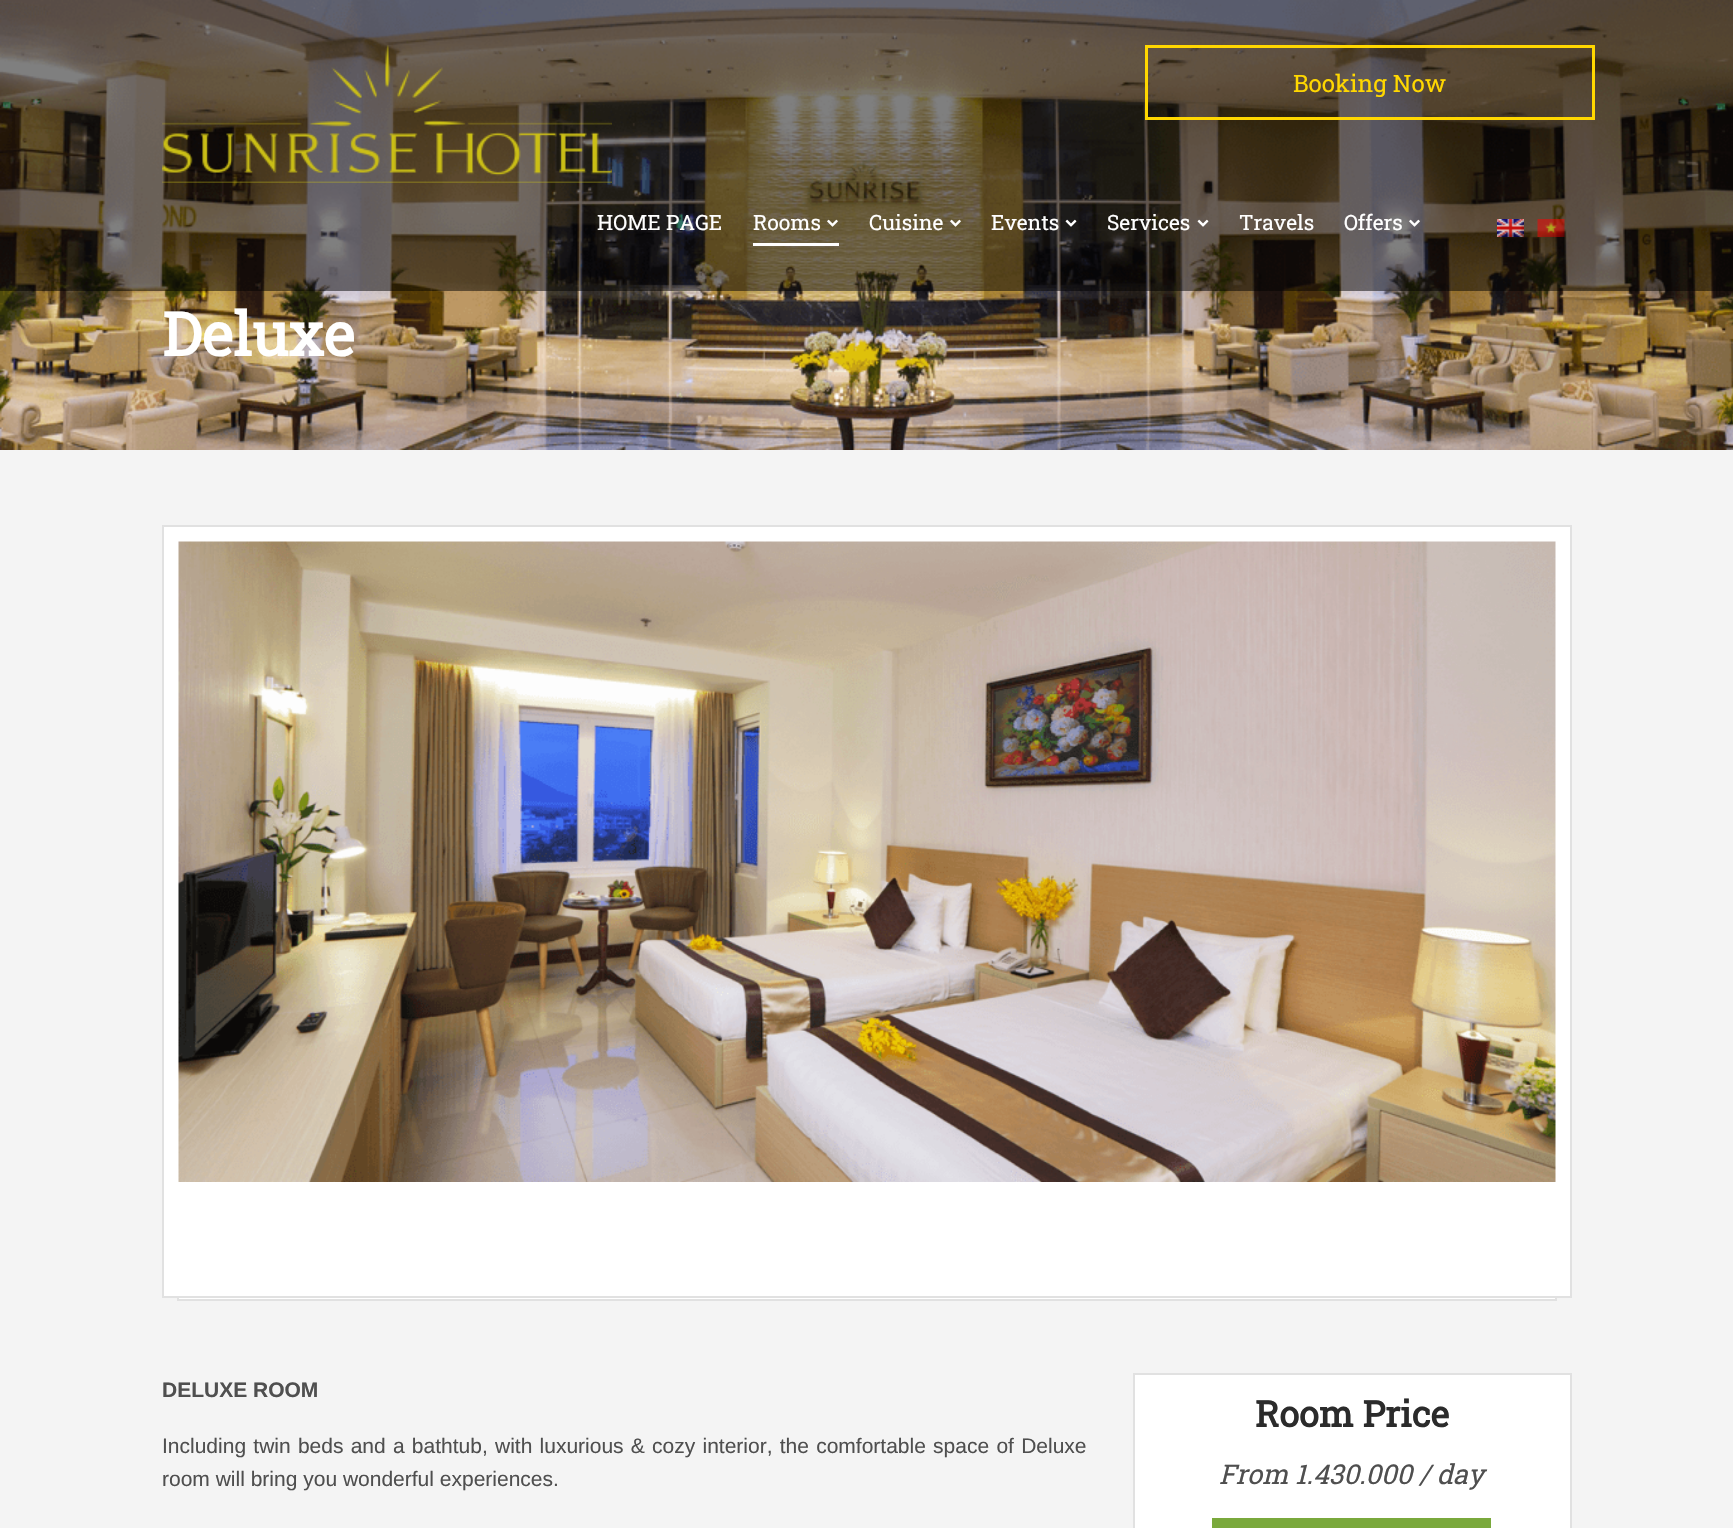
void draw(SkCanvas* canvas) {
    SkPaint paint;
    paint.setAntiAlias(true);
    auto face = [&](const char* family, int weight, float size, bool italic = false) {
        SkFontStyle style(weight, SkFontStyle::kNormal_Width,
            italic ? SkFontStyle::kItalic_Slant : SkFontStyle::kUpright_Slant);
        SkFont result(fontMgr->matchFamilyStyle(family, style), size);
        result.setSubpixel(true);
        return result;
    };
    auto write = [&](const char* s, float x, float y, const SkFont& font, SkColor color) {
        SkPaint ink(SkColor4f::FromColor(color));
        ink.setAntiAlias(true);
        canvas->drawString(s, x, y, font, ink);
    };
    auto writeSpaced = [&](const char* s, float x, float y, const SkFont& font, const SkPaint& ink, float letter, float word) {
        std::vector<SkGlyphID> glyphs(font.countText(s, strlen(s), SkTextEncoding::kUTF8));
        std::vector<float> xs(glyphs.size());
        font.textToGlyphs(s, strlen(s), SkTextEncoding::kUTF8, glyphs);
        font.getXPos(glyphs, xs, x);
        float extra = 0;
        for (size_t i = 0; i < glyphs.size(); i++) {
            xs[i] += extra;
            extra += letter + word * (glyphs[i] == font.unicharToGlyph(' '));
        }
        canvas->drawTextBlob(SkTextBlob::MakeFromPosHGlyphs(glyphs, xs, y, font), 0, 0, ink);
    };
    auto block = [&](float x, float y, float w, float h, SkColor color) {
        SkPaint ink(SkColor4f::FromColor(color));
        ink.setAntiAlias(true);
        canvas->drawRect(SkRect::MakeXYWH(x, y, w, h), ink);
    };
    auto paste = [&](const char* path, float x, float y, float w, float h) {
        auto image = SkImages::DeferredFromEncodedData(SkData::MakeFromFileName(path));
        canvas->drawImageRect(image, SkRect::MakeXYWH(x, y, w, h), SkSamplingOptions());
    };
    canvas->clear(SkColorSetRGB(244, 244, 244));
    paste("pic9.png", 0, 0, 1733, 450);
    block(0, 0, 1733, 291, SkColorSetARGB(128, 0, 0, 0));
    paste("pic1.png", 162, 45, 450, 138);
    paint.setStyle(SkPaint::kStroke_Style);
    paint.setStrokeWidth(3);
    paint.setColor(SkColorSetRGB(255, 215, 0));
    canvas->drawRect(SkRect::MakeXYWH(1146.5f, 46.5f, 447, 72), paint);
    auto kFont1 = face("Roboto Slab", 400, 24);
    write("Booking Now", 1293, 92, kFont1, SkColorSetRGB(255, 215, 0));
    auto kFont2 = face("Roboto Slab", 400, 21);
    write("HOME PAGE", 597, 230, kFont2, SK_ColorWHITE);
    block(753, 243, 86, 3, SK_ColorWHITE);
    write("Rooms", 753, 230, kFont2, SK_ColorWHITE);
    paste("pic2.png", 827, 219, 11, 8);
    write("Cuisine", 869, 230, kFont2, SK_ColorWHITE);
    paste("pic3.png", 950, 219, 11, 8);
    write("Events", 991, 230, kFont2, SK_ColorWHITE);
    paste("pic4.png", 1065, 219, 12, 8);
    write("Services", 1107, 230, kFont2, SK_ColorWHITE);
    paste("pic5.png", 1197, 219, 12, 8);
    write("Travels", 1239, 230, kFont2, SK_ColorWHITE);
    write("Offers", 1344, 230, kFont2, SK_ColorWHITE);
    paste("pic6.png", 1409, 219, 11, 8);
    paste("pic7.png", 1497, 219, 27, 18);
    paste("pic8.png", 1537, 219, 28, 18);
    auto kFont3 = face("Roboto Slab", 700, 60);
    write("Deluxe", 162, 356, kFont3, SK_ColorWHITE);
    block(177, 1298, 1380, 1, SK_ColorWHITE);
    paint.setStrokeWidth(2);
    paint.setColor(SkColorSetRGB(225, 225, 225));
    canvas->drawRect(SkRect::MakeXYWH(178, 1294, 1378, 6), paint);
    paint.setStyle(SkPaint::kFill_Style);
    paint.setColor(SK_ColorWHITE);
    canvas->drawRect(SkRect::MakeXYWH(163, 526, 1408, 771), paint);
    paint.setStyle(SkPaint::kStroke_Style);
    paint.setColor(SkColorSetRGB(225, 225, 225));
    canvas->drawRect(SkRect::MakeXYWH(163, 526, 1408, 771), paint);
    paste("pic10.png", 178, 541, 1378, 641);
    auto kFont4 = face("Liberation Sans", 700, 21);
    write("DELUXE ROOM", 162, 1397, kFont4, SkColorSetRGB(79, 79, 79));
    auto kFont5 = face("Liberation Sans", 400, 21);
    paint.setStyle(SkPaint::kFill_Style);
    paint.setColor(SkColorSetRGB(79, 79, 79));
    writeSpaced("Including twin beds and a bathtub, with luxurious & cozy interior, the comfortable space of Deluxe", 162, 1453, kFont5, paint, 0, 1.4f);
    write("room will bring you wonderful experiences.", 162, 1486, kFont5, SkColorSetRGB(79, 79, 79));
    paint.setColor(SK_ColorWHITE);
    canvas->drawRect(SkRect::MakeXYWH(1134, 1374, 437, 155), paint);
    paint.setStyle(SkPaint::kStroke_Style);
    paint.setColor(SkColorSetRGB(225, 225, 225));
    canvas->drawRect(SkRect::MakeXYWH(1134, 1374, 437, 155), paint);
    auto kFont6 = face("Roboto Slab", 700, 36);
    write("Room Price", 1255, 1427, kFont6, SkColorSetRGB(43, 43, 43));
    auto kFont7 = face("Roboto Slab", 400, 27.25f, true);
    write("From 1.430.000 / day", 1219, 1484, kFont7, SkColorSetRGB(79, 79, 79));
    block(1212, 1518, 279, 10, SkColorSetRGB(122, 169, 60));
}
